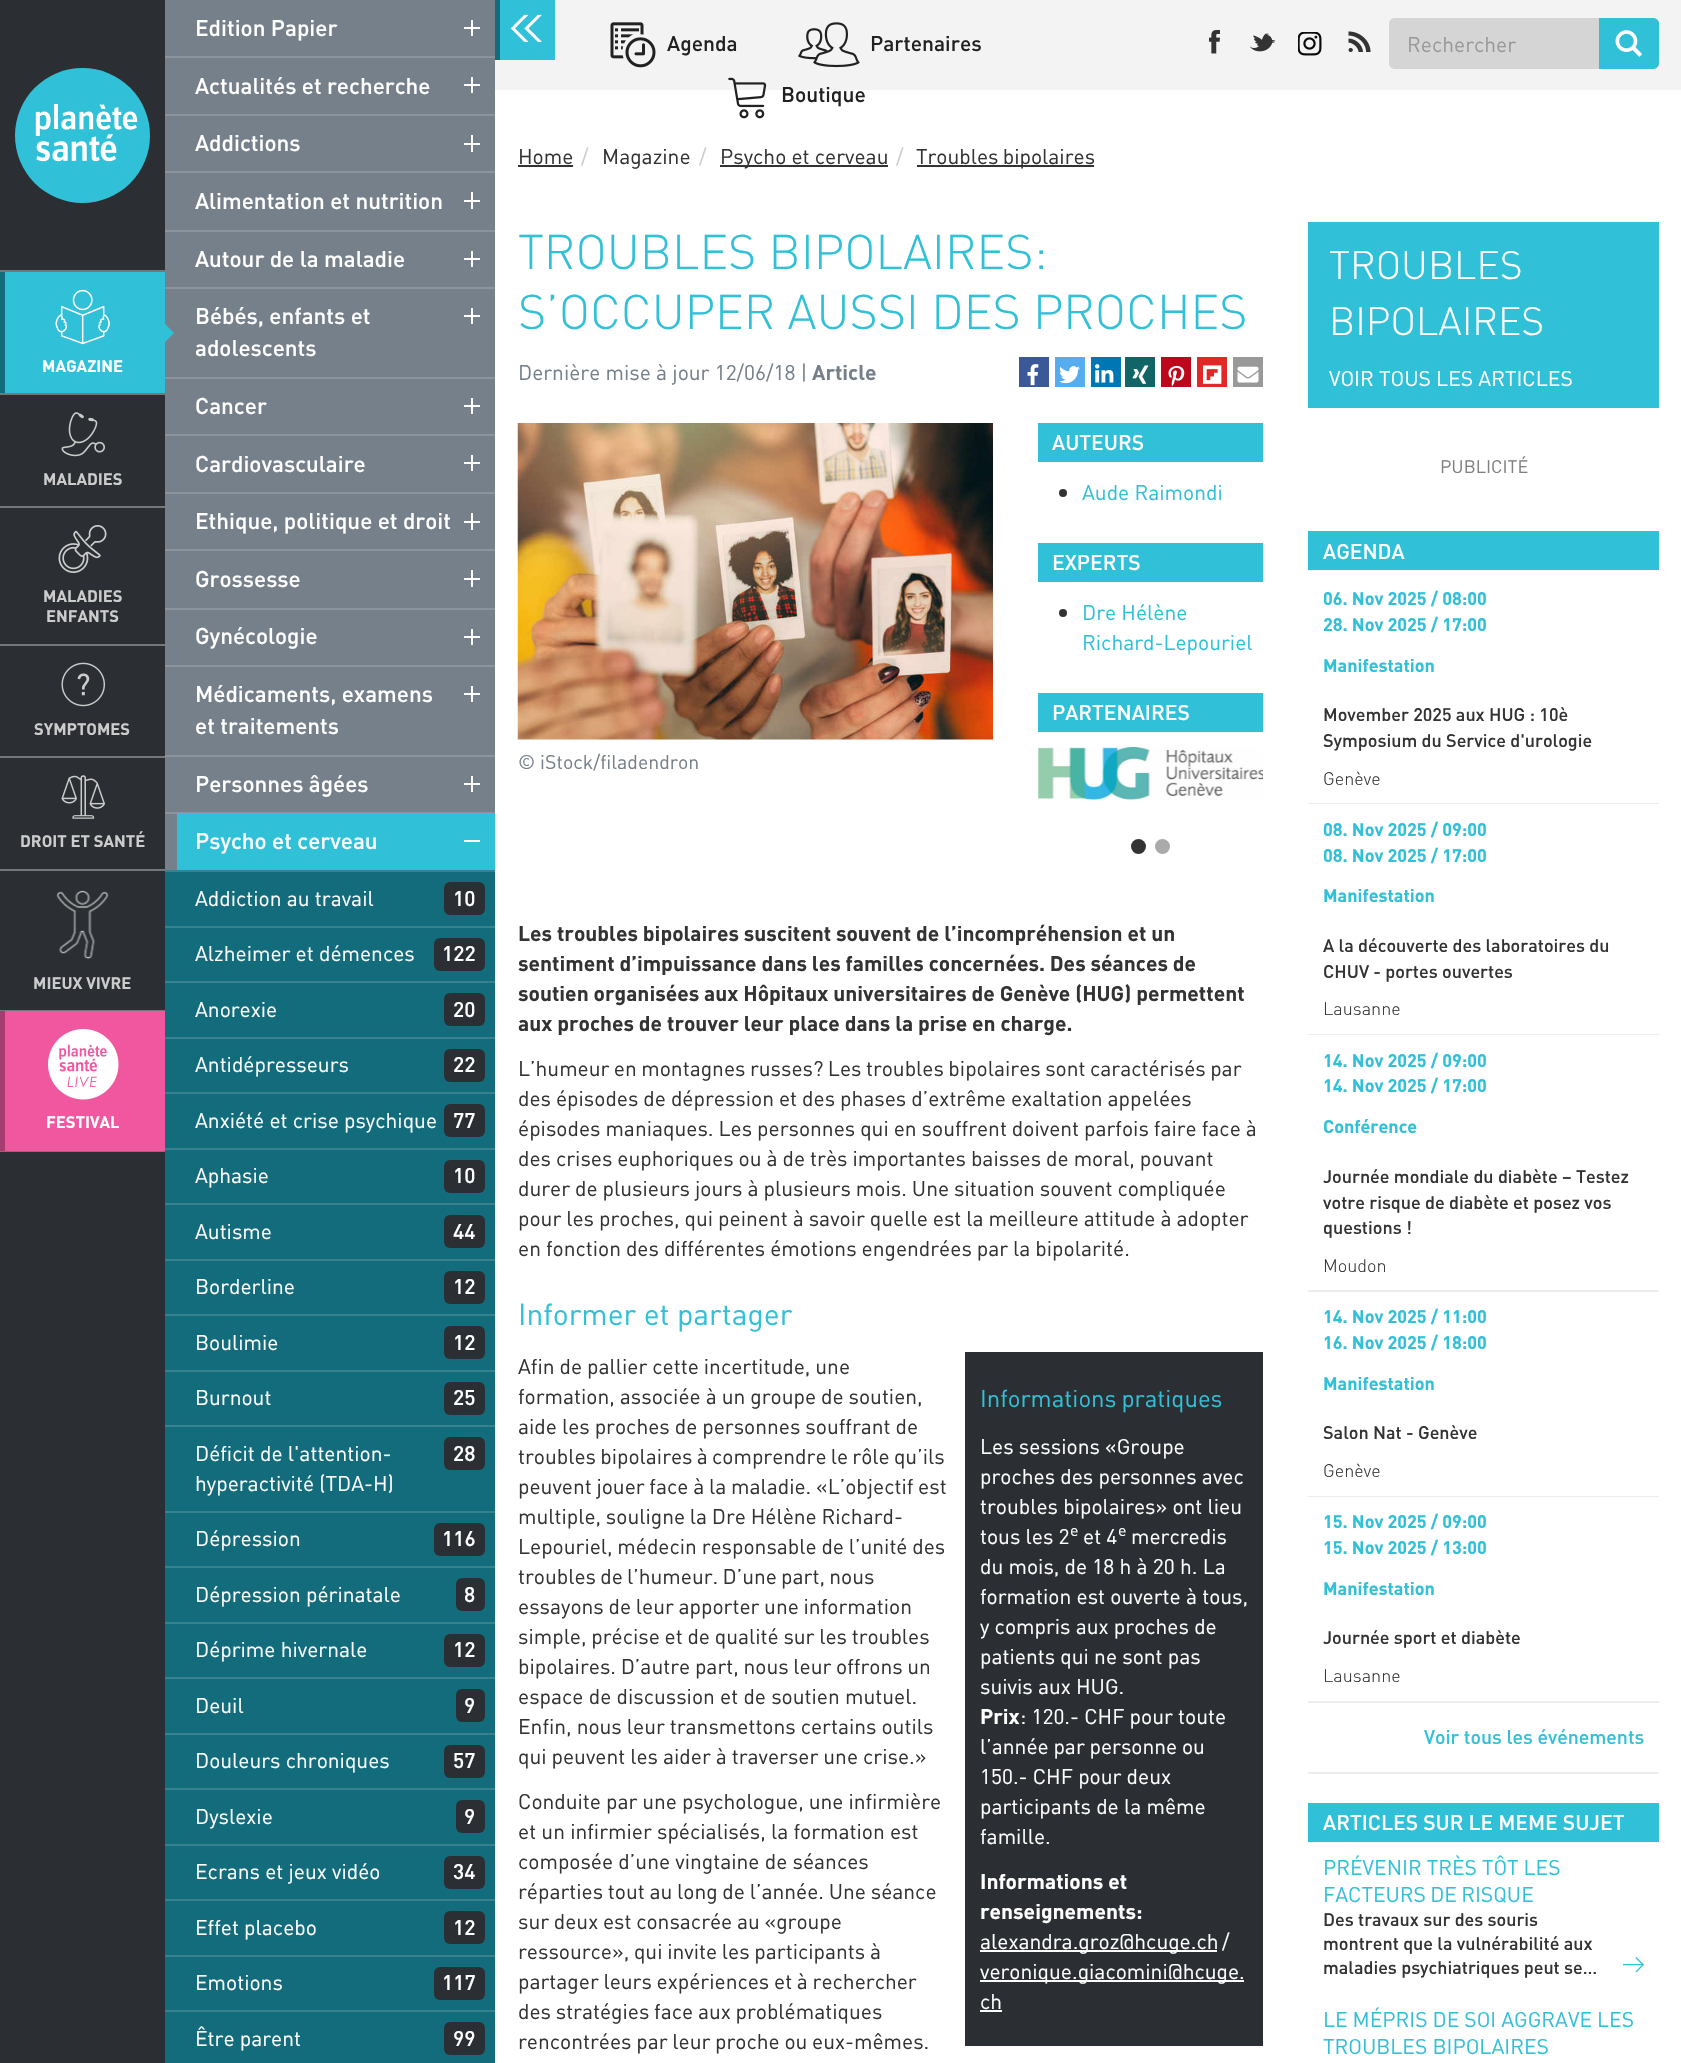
void draw(SkCanvas* canvas) {
    SkPaint paint;
    paint.setAntiAlias(true);
    auto face = [&](const char* family, int weight, float size, bool italic = false) {
        SkFontStyle style(weight, SkFontStyle::kNormal_Width,
            italic ? SkFontStyle::kItalic_Slant : SkFontStyle::kUpright_Slant);
        SkFont result(fontMgr->matchFamilyStyle(family, style), size);
        result.setSubpixel(true);
        return result;
    };
    auto write = [&](const char* s, float x, float y, const SkFont& font, SkColor color) {
        SkPaint ink(SkColor4f::FromColor(color));
        ink.setAntiAlias(true);
        canvas->drawString(s, x, y, font, ink);
    };
    auto writeSpaced = [&](const char* s, float x, float y, const SkFont& font, const SkPaint& ink, float letter, float word) {
        std::vector<SkGlyphID> glyphs(font.countText(s, strlen(s), SkTextEncoding::kUTF8));
        std::vector<float> xs(glyphs.size());
        font.textToGlyphs(s, strlen(s), SkTextEncoding::kUTF8, glyphs);
        font.getXPos(glyphs, xs, x);
        float extra = 0;
        for (size_t i = 0; i < glyphs.size(); i++) {
            xs[i] += extra;
            extra += letter + word * (glyphs[i] == font.unicharToGlyph(' '));
        }
        canvas->drawTextBlob(SkTextBlob::MakeFromPosHGlyphs(glyphs, xs, y, font), 0, 0, ink);
    };
    auto block = [&](float x, float y, float w, float h, SkColor color) {
        SkPaint ink(SkColor4f::FromColor(color));
        ink.setAntiAlias(true);
        canvas->drawRect(SkRect::MakeXYWH(x, y, w, h), ink);
    };
    auto card = [&](float x, float y, float w, float h, float radius, SkColor color) {
        SkPaint ink(SkColor4f::FromColor(color));
        ink.setAntiAlias(true);
        canvas->drawRoundRect(SkRect::MakeXYWH(x, y, w, h), radius, radius, ink);
    };
    auto paste = [&](const char* path, float x, float y, float w, float h) {
        auto image = SkImages::DeferredFromEncodedData(SkData::MakeFromFileName(path));
        canvas->drawImageRect(image, SkRect::MakeXYWH(x, y, w, h), SkSamplingOptions());
    };
    canvas->clear(SK_ColorWHITE);
    block(0, 0, 165, 2063, SkColorSetRGB(43, 47, 51));
    block(165, 0, 330, 870, SkColorSetRGB(118, 128, 138));
    block(0, 270, 165, 2, SkColorSetRGB(117, 120, 122));
    block(0, 393, 165, 2, SkColorSetRGB(117, 120, 122));
    block(5, 272, 160, 121, SkColorSetRGB(48, 192, 216));
    block(0, 272, 5, 121, SkColorSetRGB(18, 108, 124));
    paste("pic1.png", 55, 289, 55, 56);
    paint.setColor(SkColorSetRGB(48, 192, 216));
    canvas->drawPath(SkPathBuilder().moveTo(165, 342).lineTo(165, 324).lineTo(174, 333).close().detach(), paint);
    auto kFont1 = face("DIN", 700, 16.5f);
    write("MAGAZINE", 42, 372, kFont1, SK_ColorWHITE);
    block(165, 56, 330, 2, SkColorSetRGB(139, 147, 156));
    auto kFont2 = face("DIN", 500, 22.5f);
    write("Edition Papier", 195, 36, kFont2, SK_ColorWHITE);
    block(464, 27, 16, 2, SK_ColorWHITE);
    block(471, 20, 2, 16, SK_ColorWHITE);
    block(165, 114, 330, 2, SkColorSetRGB(139, 147, 156));
    write("Actualités et recherche", 195, 94, kFont2, SK_ColorWHITE);
    block(464, 84, 16, 2, SK_ColorWHITE);
    block(471, 77, 2, 16, SK_ColorWHITE);
    block(165, 171, 330, 2, SkColorSetRGB(139, 147, 156));
    write("Addictions", 195, 151, kFont2, SK_ColorWHITE);
    block(464, 143, 16, 2, SK_ColorWHITE);
    block(471, 135, 2, 17, SK_ColorWHITE);
    block(165, 230, 330, 2, SkColorSetRGB(139, 147, 156));
    write("Alimentation et nutrition", 195, 209, kFont2, SK_ColorWHITE);
    block(464, 200, 16, 2, SK_ColorWHITE);
    block(471, 192, 2, 17, SK_ColorWHITE);
    block(165, 287, 330, 2, SkColorSetRGB(139, 147, 156));
    write("Autour de la maladie", 195, 267, kFont2, SK_ColorWHITE);
    block(464, 258, 16, 2, SK_ColorWHITE);
    block(471, 251, 2, 16, SK_ColorWHITE);
    block(165, 377, 330, 2, SkColorSetRGB(139, 147, 156));
    write("Bébés, enfants et", 195, 324, kFont2, SK_ColorWHITE);
    write("adolescents", 195, 356, kFont2, SK_ColorWHITE);
    block(464, 315, 16, 2, SK_ColorWHITE);
    block(471, 308, 2, 16, SK_ColorWHITE);
    block(165, 434, 330, 2, SkColorSetRGB(139, 147, 156));
    write("Cancer", 195, 414, kFont2, SK_ColorWHITE);
    block(464, 405, 16, 2, SK_ColorWHITE);
    block(471, 398, 2, 16, SK_ColorWHITE);
    block(165, 492, 330, 2, SkColorSetRGB(139, 147, 156));
    write("Cardiovasculaire", 195, 472, kFont2, SK_ColorWHITE);
    block(464, 462, 16, 2, SK_ColorWHITE);
    block(471, 455, 2, 16, SK_ColorWHITE);
    block(165, 549, 330, 2, SkColorSetRGB(139, 147, 156));
    write("Ethique, politique et droit", 195, 529, kFont2, SK_ColorWHITE);
    block(464, 521, 16, 2, SK_ColorWHITE);
    block(471, 513, 2, 17, SK_ColorWHITE);
    block(165, 608, 330, 2, SkColorSetRGB(139, 147, 156));
    write("Grossesse", 195, 587, kFont2, SK_ColorWHITE);
    block(464, 578, 16, 2, SK_ColorWHITE);
    block(471, 570, 2, 17, SK_ColorWHITE);
    block(165, 665, 330, 2, SkColorSetRGB(139, 147, 156));
    write("Gynécologie", 195, 644, kFont2, SK_ColorWHITE);
    block(464, 636, 16, 2, SK_ColorWHITE);
    block(471, 629, 2, 16, SK_ColorWHITE);
    block(165, 755, 330, 2, SkColorSetRGB(139, 147, 156));
    write("Médicaments, examens", 195, 702, kFont2, SK_ColorWHITE);
    write("et traitements", 195, 734, kFont2, SK_ColorWHITE);
    block(464, 693, 16, 2, SK_ColorWHITE);
    block(471, 686, 2, 16, SK_ColorWHITE);
    block(165, 812, 330, 2, SkColorSetRGB(139, 147, 156));
    write("Personnes âgées", 195, 792, kFont2, SK_ColorWHITE);
    block(464, 783, 16, 2, SK_ColorWHITE);
    block(471, 776, 2, 16, SK_ColorWHITE);
    block(177, 813, 318, 57, SkColorSetRGB(48, 192, 216));
    write("Psycho et cerveau", 195, 849, kFont2, SK_ColorWHITE);
    block(464, 840, 16, 2, SK_ColorWHITE);
    block(165, 872, 330, 1191, SkColorSetRGB(18, 108, 124));
    block(165, 870, 330, 2, SkColorSetRGB(54, 130, 144));
    auto kFont3 = face("DIN", 400, 21);
    write("Addiction au travail", 195, 906, kFont3, SK_ColorWHITE);
    card(444, 882, 41, 33, 6, SkColorSetRGB(43, 47, 51));
    auto kFont4 = face("DIN", 500, 21);
    write("10", 453, 906, kFont4, SK_ColorWHITE);
    block(165, 926, 330, 2, SkColorSetRGB(54, 130, 144));
    write("Alzheimer et démences", 195, 961, kFont3, SK_ColorWHITE);
    card(434, 938, 51, 33, 6, SkColorSetRGB(43, 47, 51));
    write("122", 442, 961, kFont4, SK_ColorWHITE);
    block(165, 981, 330, 2, SkColorSetRGB(54, 130, 144));
    write("Anorexie", 195, 1017, kFont3, SK_ColorWHITE);
    card(444, 993, 41, 33, 6, SkColorSetRGB(43, 47, 51));
    write("20", 453, 1017, kFont4, SK_ColorWHITE);
    block(165, 1037, 330, 2, SkColorSetRGB(54, 130, 144));
    write("Antidépresseurs", 195, 1072, kFont3, SK_ColorWHITE);
    card(444, 1049, 41, 33, 6, SkColorSetRGB(43, 47, 51));
    write("22", 453, 1072, kFont4, SK_ColorWHITE);
    block(165, 1092, 330, 2, SkColorSetRGB(54, 130, 144));
    write("Anxiété et crise psychique", 195, 1128, kFont3, SK_ColorWHITE);
    card(444, 1104, 41, 33, 6, SkColorSetRGB(43, 47, 51));
    write("77", 453, 1128, kFont4, SK_ColorWHITE);
    block(165, 1148, 330, 2, SkColorSetRGB(54, 130, 144));
    write("Aphasie", 195, 1183, kFont3, SK_ColorWHITE);
    card(444, 1160, 41, 33, 6, SkColorSetRGB(43, 47, 51));
    write("10", 453, 1183, kFont4, SK_ColorWHITE);
    block(165, 1203, 330, 2, SkColorSetRGB(54, 130, 144));
    write("Autisme", 195, 1239, kFont3, SK_ColorWHITE);
    card(444, 1215, 41, 33, 6, SkColorSetRGB(43, 47, 51));
    write("44", 453, 1239, kFont4, SK_ColorWHITE);
    block(165, 1259, 330, 2, SkColorSetRGB(54, 130, 144));
    write("Borderline", 195, 1294, kFont3, SK_ColorWHITE);
    card(444, 1271, 41, 33, 6, SkColorSetRGB(43, 47, 51));
    write("12", 453, 1294, kFont4, SK_ColorWHITE);
    block(165, 1314, 330, 2, SkColorSetRGB(54, 130, 144));
    write("Boulimie", 195, 1350, kFont3, SK_ColorWHITE);
    card(444, 1326, 41, 33, 6, SkColorSetRGB(43, 47, 51));
    write("12", 453, 1350, kFont4, SK_ColorWHITE);
    block(165, 1370, 330, 2, SkColorSetRGB(54, 130, 144));
    write("Burnout", 195, 1405, kFont3, SK_ColorWHITE);
    card(444, 1382, 41, 33, 6, SkColorSetRGB(43, 47, 51));
    write("25", 453, 1405, kFont4, SK_ColorWHITE);
    block(165, 1425, 330, 2, SkColorSetRGB(54, 130, 144));
    write("Déficit de l'attention-", 195, 1461, kFont3, SK_ColorWHITE);
    write("hyperactivité (TDA-H)", 195, 1491, kFont3, SK_ColorWHITE);
    card(444, 1437, 41, 33, 6, SkColorSetRGB(43, 47, 51));
    write("28", 453, 1461, kFont4, SK_ColorWHITE);
    block(165, 1511, 330, 2, SkColorSetRGB(54, 130, 144));
    write("Dépression", 195, 1546, kFont3, SK_ColorWHITE);
    card(434, 1523, 51, 33, 6, SkColorSetRGB(43, 47, 51));
    write("116", 442, 1546, kFont4, SK_ColorWHITE);
    block(165, 1566, 330, 2, SkColorSetRGB(54, 130, 144));
    write("Dépression périnatale", 195, 1602, kFont3, SK_ColorWHITE);
    card(456, 1578, 29, 33, 6, SkColorSetRGB(43, 47, 51));
    write("8", 464, 1602, kFont4, SK_ColorWHITE);
    block(165, 1622, 330, 2, SkColorSetRGB(54, 130, 144));
    write("Déprime hivernale", 195, 1657, kFont3, SK_ColorWHITE);
    card(444, 1634, 41, 33, 6, SkColorSetRGB(43, 47, 51));
    write("12", 453, 1657, kFont4, SK_ColorWHITE);
    block(165, 1677, 330, 2, SkColorSetRGB(54, 130, 144));
    write("Deuil", 195, 1713, kFont3, SK_ColorWHITE);
    card(456, 1689, 29, 33, 6, SkColorSetRGB(43, 47, 51));
    write("9", 464, 1713, kFont4, SK_ColorWHITE);
    block(165, 1733, 330, 2, SkColorSetRGB(54, 130, 144));
    write("Douleurs chroniques", 195, 1768, kFont3, SK_ColorWHITE);
    card(444, 1745, 41, 33, 6, SkColorSetRGB(43, 47, 51));
    write("57", 453, 1768, kFont4, SK_ColorWHITE);
    block(165, 1788, 330, 2, SkColorSetRGB(54, 130, 144));
    write("Dyslexie", 195, 1824, kFont3, SK_ColorWHITE);
    card(456, 1800, 29, 33, 6, SkColorSetRGB(43, 47, 51));
    write("9", 464, 1824, kFont4, SK_ColorWHITE);
    block(165, 1844, 330, 2, SkColorSetRGB(54, 130, 144));
    write("Ecrans et jeux vidéo", 195, 1879, kFont3, SK_ColorWHITE);
    card(444, 1856, 41, 33, 6, SkColorSetRGB(43, 47, 51));
    write("34", 453, 1879, kFont4, SK_ColorWHITE);
    block(165, 1899, 330, 2, SkColorSetRGB(54, 130, 144));
    write("Effet placebo", 195, 1935, kFont3, SK_ColorWHITE);
    card(444, 1911, 41, 33, 6, SkColorSetRGB(43, 47, 51));
    write("12", 453, 1935, kFont4, SK_ColorWHITE);
    block(165, 1955, 330, 2, SkColorSetRGB(54, 130, 144));
    write("Emotions", 195, 1990, kFont3, SK_ColorWHITE);
    card(434, 1967, 51, 33, 6, SkColorSetRGB(43, 47, 51));
    write("117", 442, 1990, kFont4, SK_ColorWHITE);
    block(165, 2010, 330, 2, SkColorSetRGB(54, 130, 144));
    write("Être parent", 195, 2046, kFont3, SK_ColorWHITE);
    card(444, 2022, 41, 33, 6, SkColorSetRGB(43, 47, 51));
    write("99", 453, 2046, kFont4, SK_ColorWHITE);
    block(0, 506, 165, 2, SkColorSetRGB(117, 120, 122));
    paste("pic2.png", 61, 412, 44, 45);
    write("MALADIES", 43, 485, kFont1, SkColorSetRGB(204, 204, 204));
    block(0, 644, 165, 2, SkColorSetRGB(117, 120, 122));
    paste("pic3.png", 58, 525, 49, 48);
    write("MALADIES", 43, 602, kFont1, SkColorSetRGB(204, 204, 204));
    write("ENFANTS", 46, 622, kFont1, SkColorSetRGB(204, 204, 204));
    block(0, 756, 165, 2, SkColorSetRGB(117, 120, 122));
    paste("pic4.png", 61, 662, 44, 45);
    write("SYMPTOMES", 34, 735, kFont1, SkColorSetRGB(204, 204, 204));
    block(0, 869, 165, 2, SkColorSetRGB(117, 120, 122));
    paste("pic5.png", 61, 775, 44, 44);
    write("DROIT ET SANTÉ", 20, 847, kFont1, SkColorSetRGB(204, 204, 204));
    block(0, 1010, 165, 1, SkColorSetRGB(117, 120, 122));
    paste("pic6.png", 56, 890, 53, 69);
    write("MIEUX VIVRE", 33, 989, kFont1, SkColorSetRGB(204, 204, 204));
    block(0, 1151, 165, 1, SkColorSetRGB(117, 120, 122));
    block(5, 1011, 160, 140, SkColorSetRGB(241, 87, 159));
    block(0, 1011, 5, 140, SkColorSetRGB(168, 60, 111));
    paste("pic7.png", 48, 1029, 71, 71);
    write("FESTIVAL", 46, 1128, kFont1, SK_ColorWHITE);
    block(495, 0, 1186, 90, SkColorSetRGB(243, 243, 243));
    block(500, 0, 55, 60, SkColorSetRGB(48, 192, 216));
    block(495, 0, 5, 60, SkColorSetRGB(18, 108, 124));
    paste("pic8.png", 510, 14, 32, 28);
    canvas->drawCircle(82.5f, 135.5f, 67.5f, paint);
    paste("pic9.png", 35, 104, 103, 58);
    paste("pic10.png", 610, 22, 46, 46);
    write("Agenda", 667, 51, kFont4, SkColorSetRGB(33, 33, 33));
    paste("pic11.png", 798, 22, 62, 46);
    write("Partenaires", 870, 51, kFont4, SkColorSetRGB(33, 33, 33));
    paste("pic12.png", 728, 77, 39, 42);
    write("Boutique", 781, 102, kFont4, SkColorSetRGB(33, 33, 33));
    paste("pic13.png", 1209, 30, 11, 24);
    paste("pic14.png", 1249, 33, 27, 19);
    paste("pic15.png", 1298, 32, 24, 24);
    paste("pic16.png", 1348, 31, 23, 21);
    paint.setColor(SkColorSetRGB(213, 213, 213));
    canvas->drawPath(SkPathBuilder().moveTo(1395, 18).lineTo(1599, 18).lineTo(1599, 69).lineTo(1395, 69).cubicTo(1391.5f, 69, 1389, 66.5f, 1389, 63).lineTo(1389, 24).cubicTo(1389, 20.5f, 1391.5f, 18, 1395, 18).close().detach(), paint);
    write("Rechercher", 1407, 52, kFont3, SkColorSetRGB(153, 153, 153));
    paint.setColor(SkColorSetRGB(48, 192, 216));
    canvas->drawPath(SkPathBuilder().moveTo(1599, 18).lineTo(1653, 18).cubicTo(1656.5f, 18, 1659, 20.5f, 1659, 24).lineTo(1659, 63).cubicTo(1659, 66.5f, 1656.5f, 69, 1653, 69).lineTo(1599, 69).close().detach(), paint);
    paste("pic17.png", 1615, 30, 28, 27);
    write("Home", 518, 164, kFont3, SkColorSetRGB(51, 51, 51));
    block(518, 165, 55, 2, SkColorSetRGB(51, 51, 51));
    write("/", 581, 164, kFont3, SkColorSetRGB(204, 204, 204));
    write("Magazine", 602, 164, kFont3, SkColorSetRGB(51, 51, 51));
    write("/", 699, 164, kFont3, SkColorSetRGB(204, 204, 204));
    block(720, 165, 168, 2, SkColorSetRGB(51, 51, 51));
    write("Psycho et cerveau", 720, 164, kFont3, SkColorSetRGB(51, 51, 51));
    write("/", 896, 164, kFont3, SkColorSetRGB(204, 204, 204));
    block(917, 165, 177, 2, SkColorSetRGB(51, 51, 51));
    paint.setColor(SkColorSetRGB(51, 51, 51));
    writeSpaced("Troubles bipolaires", 916, 164, kFont3, paint, 0, -1);
    auto kFont5 = face("DIN", 300, 48);
    write("TROUBLES BIPOLAIRES:", 518, 269, kFont5, SkColorSetRGB(48, 192, 216));
    write("S’OCCUPER AUSSI DES PROCHES", 518, 329, kFont5, SkColorSetRGB(48, 192, 216));
    write("Dernière mise à jour 12/06/18 |", 518, 380, kFont3, SkColorSetRGB(118, 128, 138));
    auto kFont6 = face("DIN", 700, 21);
    write("Article", 812, 380, kFont6, SkColorSetRGB(118, 128, 138));
    block(1019, 357, 30, 30, SkColorSetRGB(59, 89, 152));
    paste("pic18.png", 1027, 364, 12, 22);
    block(1055, 357, 30, 30, SkColorSetRGB(85, 172, 238));
    paste("pic19.png", 1059, 366, 21, 18);
    block(1091, 357, 30, 30, SkColorSetRGB(0, 119, 181));
    paste("pic20.png", 1095, 364, 19, 19);
    block(1125, 357, 30, 30, SkColorSetRGB(18, 101, 103));
    paste("pic21.png", 1132, 365, 17, 19);
    block(1161, 357, 30, 30, SkColorSetRGB(189, 8, 28));
    paste("pic22.png", 1168, 365, 17, 22);
    block(1197, 357, 30, 30, SkColorSetRGB(225, 40, 40));
    paste("pic23.png", 1203, 365, 19, 19);
    block(1233, 357, 30, 30, SkColorSetRGB(153, 153, 153));
    paste("pic24.png", 1237, 366, 22, 17);
    block(1038, 423, 225, 39, SkColorSetRGB(48, 192, 216));
    write("AUTEURS", 1052, 450, kFont4, SK_ColorWHITE);
    canvas->drawCircle(1063, 493, 4, paint);
    write("Aude Raimondi", 1082, 500, kFont3, SkColorSetRGB(48, 192, 216));
    block(1038, 543, 225, 39, SkColorSetRGB(48, 192, 216));
    write("EXPERTS", 1052, 570, kFont4, SK_ColorWHITE);
    canvas->drawCircle(1063, 613, 4, paint);
    write("Dre Hélène", 1082, 620, kFont3, SkColorSetRGB(48, 192, 216));
    write("Richard-Lepouriel", 1082, 650, kFont3, SkColorSetRGB(48, 192, 216));
    block(1038, 693, 225, 39, SkColorSetRGB(48, 192, 216));
    write("PARTENAIRES", 1052, 720, kFont4, SK_ColorWHITE);
    paste("pic25.png", 1038, 747, 225, 53);
    canvas->drawCircle(1138.5f, 846.5f, 7.5f, paint);
    paint.setColor(SkColorSetRGB(170, 170, 170));
    canvas->drawCircle(1162.5f, 846.5f, 7.5f, paint);
    paste("pic26.png", 517, 423, 476, 317);
    auto kFont7 = face("DIN", 400, 19.5f);
    write("© iStock/filadendron", 518, 769, kFont7, SkColorSetRGB(118, 128, 138));
    write("Les troubles bipolaires suscitent souvent de l’incompréhension et un", 518, 941, kFont6, SkColorSetRGB(51, 51, 51));
    write("sentiment d’impuissance dans les familles concernées. Des séances de", 518, 971, kFont6, SkColorSetRGB(51, 51, 51));
    write("soutien organisées aux Hôpitaux universitaires de Genève (HUG) permettent", 518, 1001, kFont6, SkColorSetRGB(51, 51, 51));
    write("aux proches de trouver leur place dans la prise en charge.", 518, 1031, kFont6, SkColorSetRGB(51, 51, 51));
    paint.setColor(SkColorSetRGB(51, 51, 51));
    writeSpaced("L’humeur en montagnes russes? Les troubles bipolaires sont caractérisés par", 518, 1076, kFont3, paint, 0, -0.75f);
    writeSpaced("des épisodes de dépression et des phases d’extrême exaltation appelées", 518, 1106, kFont3, paint, 0, -0.25f);
    writeSpaced("épisodes maniaques. Les personnes qui en souffrent doivent parfois faire face à", 518, 1136, kFont3, paint, 0, -0.25f);
    writeSpaced("des crises euphoriques ou à de très importantes baisses de moral, pouvant", 518, 1166, kFont3, paint, 0, -0.25f);
    writeSpaced("durer de plusieurs jours à plusieurs mois. Une situation souvent compliquée", 518, 1196, kFont3, paint, 0, -0.25f);
    writeSpaced("pour les proches, qui peinent à savoir quelle est la meilleure attitude à adopter", 518, 1226, kFont3, paint, 0, -0.25f);
    writeSpaced("en fonction des différentes émotions engendrées par la bipolarité.", 518, 1256, kFont3, paint, 0, -0.25f);
    auto kFont8 = face("DIN", 400, 30);
    write("Informer et partager", 518, 1325, kFont8, SkColorSetRGB(48, 192, 216));
    writeSpaced("Afin de pallier cette incertitude, une", 518, 1374, kFont3, paint, 0, -0.25f);
    writeSpaced("formation, associée à un groupe de soutien,", 518, 1404, kFont3, paint, 0, -0.25f);
    writeSpaced("aide les proches de personnes souffrant de", 518, 1434, kFont3, paint, 0, -0.25f);
    writeSpaced("troubles bipolaires à comprendre le rôle qu’ils", 518, 1464, kFont3, paint, 0, -1);
    writeSpaced("peuvent jouer face à la maladie. «L’objectif est", 518, 1494, kFont3, paint, 0, -0.5f);
    writeSpaced("multiple, souligne la Dre Hélène Richard-", 518, 1524, kFont3, paint, 0, -0.5f);
    writeSpaced("Lepouriel, médecin responsable de l’unité des", 518, 1554, kFont3, paint, 0, -0.5f);
    writeSpaced("troubles de l’humeur. D’une part, nous", 518, 1584, kFont3, paint, 0, -1);
    writeSpaced("essayons de leur apporter une information", 518, 1614, kFont3, paint, 0, -0.5f);
    writeSpaced("simple, précise et de qualité sur les troubles", 518, 1644, kFont3, paint, 0, -0.5f);
    writeSpaced("bipolaires. D’autre part, nous leur offrons un", 518, 1674, kFont3, paint, 0, -0.5f);
    write("espace de discussion et de soutien mutuel.", 518, 1704, kFont3, SkColorSetRGB(51, 51, 51));
    writeSpaced("Enfin, nous leur transmettons certains outils", 518, 1734, kFont3, paint, 0, -0.25f);
    writeSpaced("qui peuvent les aider à traverser une crise.»", 518, 1764, kFont3, paint, 0, -0.25f);
    block(965, 1352, 298, 694, SkColorSetRGB(43, 47, 51));
    auto kFont9 = face("DIN", 400, 24);
    paint.setColor(SkColorSetRGB(48, 192, 216));
    writeSpaced("Informations pratiques", 980, 1407, kFont9, paint, 0, -1);
    write("Les sessions «Groupe", 980, 1454, kFont3, SK_ColorWHITE);
    write("proches des personnes avec", 980, 1484, kFont3, SK_ColorWHITE);
    write("troubles bipolaires» ont lieu", 980, 1514, kFont3, SK_ColorWHITE);
    write("tous les 2", 980, 1544, kFont3, SK_ColorWHITE);
    auto kFont10 = face("DIN", 400, 16);
    write("e", 1070, 1536, kFont10, SK_ColorWHITE);
    write("et 4", 1083, 1544, kFont3, SK_ColorWHITE);
    write("e", 1118, 1536, kFont10, SK_ColorWHITE);
    write("mercredis", 1131, 1544, kFont3, SK_ColorWHITE);
    write("du mois, de 18 h à 20 h. La", 980, 1574, kFont3, SK_ColorWHITE);
    write("formation est ouverte à tous,", 980, 1604, kFont3, SK_ColorWHITE);
    write("y compris aux proches de", 980, 1634, kFont3, SK_ColorWHITE);
    write("patients qui ne sont pas", 980, 1664, kFont3, SK_ColorWHITE);
    write("suivis aux HUG.", 980, 1694, kFont3, SK_ColorWHITE);
    write("Prix", 980, 1724, kFont6, SK_ColorWHITE);
    write(": 120.- CHF pour toute", 1020, 1724, kFont3, SK_ColorWHITE);
    paint.setColor(SK_ColorWHITE);
    writeSpaced("l’année par personne ou", 980, 1754, kFont3, paint, 0, -0.5f);
    write("150.- CHF pour deux", 980, 1784, kFont3, SK_ColorWHITE);
    write("participants de la même", 980, 1814, kFont3, SK_ColorWHITE);
    write("famille.", 980, 1844, kFont3, SK_ColorWHITE);
    write("Informations et", 980, 1889, kFont6, SK_ColorWHITE);
    write("renseignements:", 980, 1919, kFont6, SK_ColorWHITE);
    block(980, 1950, 237, 2, SK_ColorWHITE);
    write("alexandra.groz@hcuge.ch", 980, 1949, kFont3, SK_ColorWHITE);
    write("/", 1222, 1949, kFont3, SK_ColorWHITE);
    block(980, 1980, 264, 2, SK_ColorWHITE);
    write("veronique.giacomini@hcuge.", 980, 1979, kFont3, SK_ColorWHITE);
    write("ch", 980, 2009, kFont3, SK_ColorWHITE);
    block(980, 2010, 22, 2, SK_ColorWHITE);
    paint.setColor(SkColorSetRGB(51, 51, 51));
    writeSpaced("Conduite par une psychologue, une infirmière", 518, 1809, kFont3, paint, 0, -0.25f);
    write("et un infirmier spécialisés, la formation est", 518, 1839, kFont3, SkColorSetRGB(51, 51, 51));
    write("composée d’une vingtaine de séances", 518, 1869, kFont3, SkColorSetRGB(51, 51, 51));
    writeSpaced("réparties tout au long de l’année. Une séance", 518, 1899, kFont3, paint, 0, -0.5f);
    writeSpaced("sur deux est consacrée au «groupe", 518, 1929, kFont3, paint, 0, -0.5f);
    writeSpaced("ressource», qui invite les participants à", 518, 1959, kFont3, paint, 0, -0.5f);
    writeSpaced("partager leurs expériences et à rechercher", 518, 1989, kFont3, paint, 0, -0.5f);
    writeSpaced("des stratégies face aux problématiques", 518, 2019, kFont3, paint, 0, -0.5f);
    writeSpaced("rencontrées par leur proche ou eux-mêmes.", 518, 2049, kFont3, paint, 0, -0.5f);
    block(1308, 222, 351, 186, SkColorSetRGB(48, 192, 216));
    auto kFont11 = face("DIN", 300, 39);
    write("TROUBLES", 1329, 279, kFont11, SK_ColorWHITE);
    write("BIPOLAIRES", 1329, 335, kFont11, SK_ColorWHITE);
    write("VOIR TOUS LES ARTICLES", 1329, 386, kFont3, SK_ColorWHITE);
    auto kFont12 = face("DIN", 400, 18);
    write("PUBLICITÉ", 1440, 473, kFont12, SkColorSetRGB(129, 128, 127));
    block(1308, 531, 351, 39, SkColorSetRGB(48, 192, 216));
    write("AGENDA", 1323, 559, kFont4, SK_ColorWHITE);
    block(1308, 803, 351, 1, SkColorSetRGB(237, 237, 237));
    auto kFont13 = face("DIN", 700, 18);
    write("06. Nov 2025 / 08:00", 1323, 605, kFont13, SkColorSetRGB(48, 192, 216));
    write("28. Nov 2025 / 17:00", 1323, 631, kFont13, SkColorSetRGB(48, 192, 216));
    write("Manifestation", 1323, 672, kFont13, SkColorSetRGB(48, 192, 216));
    auto kFont14 = face("DIN", 500, 18);
    write("Movember 2025 aux HUG : 10è", 1323, 721, kFont14, SkColorSetRGB(51, 51, 51));
    write("Symposium du Service d'urologie", 1323, 747, kFont14, SkColorSetRGB(51, 51, 51));
    auto kFont15 = face("DIN", 300, 18);
    write("Genève", 1323, 785, kFont15, SkColorSetRGB(51, 51, 51));
    block(1308, 1034, 351, 1, SkColorSetRGB(237, 237, 237));
    write("08. Nov 2025 / 09:00", 1323, 836, kFont13, SkColorSetRGB(48, 192, 216));
    write("08. Nov 2025 / 17:00", 1323, 862, kFont13, SkColorSetRGB(48, 192, 216));
    write("Manifestation", 1323, 902, kFont13, SkColorSetRGB(48, 192, 216));
    write("A la découverte des laboratoires du", 1323, 952, kFont14, SkColorSetRGB(51, 51, 51));
    write("CHUV - portes ouvertes", 1323, 978, kFont14, SkColorSetRGB(51, 51, 51));
    write("Lausanne", 1323, 1015, kFont15, SkColorSetRGB(51, 51, 51));
    block(1308, 1290, 351, 2, SkColorSetRGB(237, 237, 237));
    write("14. Nov 2025 / 09:00", 1323, 1067, kFont13, SkColorSetRGB(48, 192, 216));
    write("14. Nov 2025 / 17:00", 1323, 1092, kFont13, SkColorSetRGB(48, 192, 216));
    write("Conférence", 1323, 1133, kFont13, SkColorSetRGB(48, 192, 216));
    write("Journée mondiale du diabète – Testez", 1323, 1183, kFont14, SkColorSetRGB(51, 51, 51));
    write("votre risque de diabète et posez vos", 1323, 1209, kFont14, SkColorSetRGB(51, 51, 51));
    write("questions !", 1323, 1234, kFont14, SkColorSetRGB(51, 51, 51));
    write("Moudon", 1323, 1272, kFont15, SkColorSetRGB(51, 51, 51));
    block(1308, 1496, 351, 1, SkColorSetRGB(237, 237, 237));
    write("14. Nov 2025 / 11:00", 1323, 1323, kFont13, SkColorSetRGB(48, 192, 216));
    write("16. Nov 2025 / 18:00", 1323, 1349, kFont13, SkColorSetRGB(48, 192, 216));
    write("Manifestation", 1323, 1390, kFont13, SkColorSetRGB(48, 192, 216));
    write("Salon Nat - Genève", 1323, 1439, kFont14, SkColorSetRGB(51, 51, 51));
    write("Genève", 1323, 1477, kFont15, SkColorSetRGB(51, 51, 51));
    block(1308, 1701, 351, 2, SkColorSetRGB(237, 237, 237));
    write("15. Nov 2025 / 09:00", 1323, 1528, kFont13, SkColorSetRGB(48, 192, 216));
    write("15. Nov 2025 / 13:00", 1323, 1554, kFont13, SkColorSetRGB(48, 192, 216));
    write("Manifestation", 1323, 1595, kFont13, SkColorSetRGB(48, 192, 216));
    write("Journée sport et diabète", 1323, 1644, kFont14, SkColorSetRGB(51, 51, 51));
    write("Lausanne", 1323, 1682, kFont15, SkColorSetRGB(51, 51, 51));
    block(1308, 1772, 351, 2, SkColorSetRGB(237, 237, 237));
    auto kFont16 = face("DIN", 500, 19.5f);
    write("Voir tous les événements", 1424, 1744, kFont16, SkColorSetRGB(48, 192, 216));
    block(1308, 1803, 351, 39, SkColorSetRGB(48, 192, 216));
    write("ARTICLES SUR LE MEME SUJET", 1323, 1830, kFont4, SK_ColorWHITE);
    paint.setColor(SkColorSetRGB(48, 192, 216));
    writeSpaced("PRÉVENIR TRÈS TÔT LES", 1323, 1875, kFont3, paint, 0, -0.25f);
    writeSpaced("FACTEURS DE RISQUE", 1323, 1902, kFont3, paint, 0, -1);
    write("Des travaux sur des souris", 1323, 1926, kFont14, SkColorSetRGB(51, 51, 51));
    write("montrent que la vulnérabilité aux", 1323, 1950, kFont14, SkColorSetRGB(51, 51, 51));
    write("maladies psychiatriques peut se…", 1323, 1974, kFont14, SkColorSetRGB(51, 51, 51));
    paste("pic27.png", 1623, 1957, 21, 16);
    writeSpaced("LE MÉPRIS DE SOI AGGRAVE LES", 1323, 2027, kFont3, paint, 0, -0.25f);
    write("TROUBLES BIPOLAIRES", 1323, 2054, kFont3, SkColorSetRGB(48, 192, 216));
}
